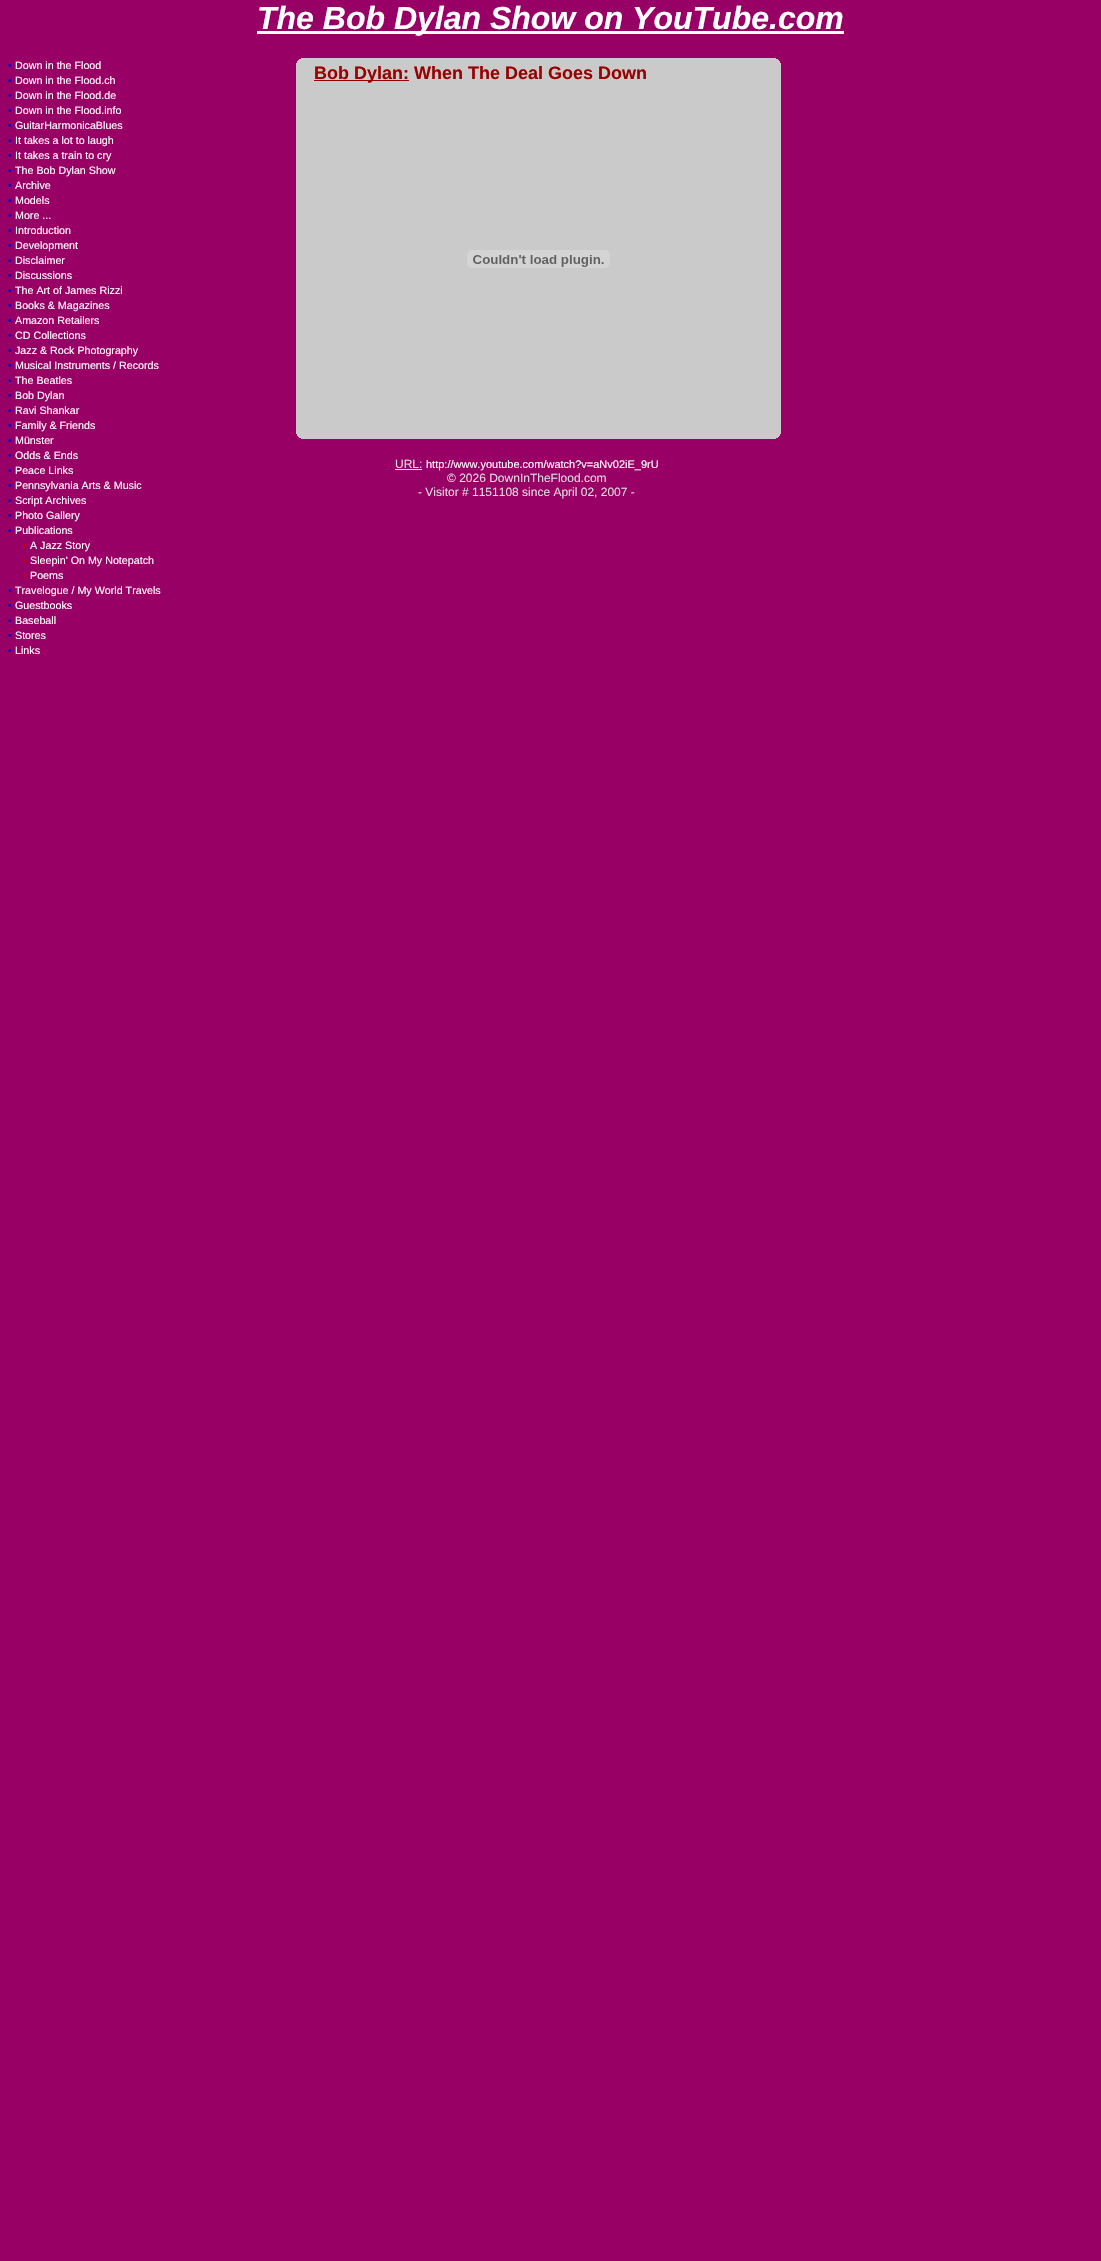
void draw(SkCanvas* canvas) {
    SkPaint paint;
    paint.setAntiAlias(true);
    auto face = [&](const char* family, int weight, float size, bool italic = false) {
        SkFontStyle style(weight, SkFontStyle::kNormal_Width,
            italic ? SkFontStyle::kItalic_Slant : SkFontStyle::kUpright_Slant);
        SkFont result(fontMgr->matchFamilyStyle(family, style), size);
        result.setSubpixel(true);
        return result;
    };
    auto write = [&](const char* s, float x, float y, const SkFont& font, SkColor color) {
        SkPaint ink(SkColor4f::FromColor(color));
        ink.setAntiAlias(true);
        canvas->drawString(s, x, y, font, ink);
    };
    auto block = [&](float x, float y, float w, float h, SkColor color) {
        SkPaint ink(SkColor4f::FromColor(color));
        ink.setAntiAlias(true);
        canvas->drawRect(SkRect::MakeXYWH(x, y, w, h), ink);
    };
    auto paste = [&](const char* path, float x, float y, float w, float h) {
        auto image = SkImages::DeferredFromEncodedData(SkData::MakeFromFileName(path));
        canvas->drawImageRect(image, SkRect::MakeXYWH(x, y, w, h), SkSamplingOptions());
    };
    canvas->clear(SkColorSetRGB(153, 0, 102));
    block(257, 31, 587, 3, SK_ColorWHITE);
    auto kFont1 = face("Liberation Sans", 700, 32, true);
    write("The Bob Dylan Show on YouTube.com", 257, 29, kFont1, SK_ColorWHITE);
    auto kFont2 = face("Liberation Sans", 400, 10.7f);
    write("•", 8, 69, kFont2, SkColorSetRGB(0, 0, 205));
    write("Down in the Flood", 15, 69, kFont2, SK_ColorWHITE);
    write("•", 8, 84, kFont2, SkColorSetRGB(0, 0, 205));
    write("Down in the Flood.ch", 15, 84, kFont2, SK_ColorWHITE);
    write("•", 8, 99, kFont2, SkColorSetRGB(0, 0, 205));
    write("Down in the Flood.de", 15, 99, kFont2, SK_ColorWHITE);
    write("•", 8, 114, kFont2, SkColorSetRGB(0, 0, 205));
    write("Down in the Flood.info", 15, 114, kFont2, SK_ColorWHITE);
    write("•", 8, 129, kFont2, SkColorSetRGB(0, 0, 205));
    write("GuitarHarmonicaBlues", 15, 129, kFont2, SK_ColorWHITE);
    write("•", 8, 144, kFont2, SkColorSetRGB(0, 0, 205));
    write("It takes a lot to laugh", 15, 144, kFont2, SK_ColorWHITE);
    write("•", 8, 159, kFont2, SkColorSetRGB(0, 0, 205));
    write("It takes a train to cry", 15, 159, kFont2, SK_ColorWHITE);
    write("•", 8, 174, kFont2, SkColorSetRGB(0, 0, 205));
    write("The Bob Dylan Show", 15, 174, kFont2, SK_ColorWHITE);
    write("•", 8, 189, kFont2, SkColorSetRGB(0, 0, 205));
    write("Archive", 15, 189, kFont2, SK_ColorWHITE);
    write("•", 8, 204, kFont2, SkColorSetRGB(0, 0, 205));
    write("Models", 15, 204, kFont2, SK_ColorWHITE);
    write("•", 8, 219, kFont2, SkColorSetRGB(0, 0, 205));
    write("More ...", 15, 219, kFont2, SK_ColorWHITE);
    write("•", 8, 234, kFont2, SkColorSetRGB(0, 0, 205));
    write("Introduction", 15, 234, kFont2, SK_ColorWHITE);
    write("•", 8, 249, kFont2, SkColorSetRGB(0, 0, 205));
    write("Development", 15, 249, kFont2, SK_ColorWHITE);
    write("•", 8, 264, kFont2, SkColorSetRGB(0, 0, 205));
    write("Disclaimer", 15, 264, kFont2, SK_ColorWHITE);
    write("•", 8, 279, kFont2, SkColorSetRGB(0, 0, 205));
    write("Discussions", 15, 279, kFont2, SK_ColorWHITE);
    write("•", 8, 294, kFont2, SkColorSetRGB(0, 0, 205));
    write("The Art of James Rizzi", 15, 294, kFont2, SK_ColorWHITE);
    write("•", 8, 309, kFont2, SkColorSetRGB(0, 0, 205));
    write("Books & Magazines", 15, 309, kFont2, SK_ColorWHITE);
    write("•", 8, 324, kFont2, SkColorSetRGB(0, 0, 205));
    write("Amazon Retailers", 15, 324, kFont2, SK_ColorWHITE);
    write("•", 8, 339, kFont2, SkColorSetRGB(0, 0, 205));
    write("CD Collections", 15, 339, kFont2, SK_ColorWHITE);
    write("•", 8, 354, kFont2, SkColorSetRGB(0, 0, 205));
    write("Jazz & Rock Photography", 15, 354, kFont2, SK_ColorWHITE);
    write("•", 8, 369, kFont2, SkColorSetRGB(0, 0, 205));
    write("Musical Instruments / Records", 15, 369, kFont2, SK_ColorWHITE);
    write("•", 8, 384, kFont2, SkColorSetRGB(0, 0, 205));
    write("The Beatles", 15, 384, kFont2, SK_ColorWHITE);
    write("•", 8, 399, kFont2, SkColorSetRGB(0, 0, 205));
    write("Bob Dylan", 15, 399, kFont2, SK_ColorWHITE);
    write("•", 8, 414, kFont2, SkColorSetRGB(0, 0, 205));
    write("Ravi Shankar", 15, 414, kFont2, SK_ColorWHITE);
    write("•", 8, 429, kFont2, SkColorSetRGB(0, 0, 205));
    write("Family & Friends", 15, 429, kFont2, SK_ColorWHITE);
    write("•", 8, 444, kFont2, SkColorSetRGB(0, 0, 205));
    write("Münster", 15, 444, kFont2, SK_ColorWHITE);
    write("•", 8, 459, kFont2, SkColorSetRGB(0, 0, 205));
    write("Odds & Ends", 15, 459, kFont2, SK_ColorWHITE);
    write("•", 8, 474, kFont2, SkColorSetRGB(0, 0, 205));
    write("Peace Links", 15, 474, kFont2, SK_ColorWHITE);
    write("•", 8, 489, kFont2, SkColorSetRGB(0, 0, 205));
    write("Pennsylvania Arts & Music", 15, 489, kFont2, SK_ColorWHITE);
    write("•", 8, 504, kFont2, SkColorSetRGB(0, 0, 205));
    write("Script Archives", 15, 504, kFont2, SK_ColorWHITE);
    write("•", 8, 519, kFont2, SkColorSetRGB(0, 0, 205));
    write("Photo Gallery", 15, 519, kFont2, SK_ColorWHITE);
    write("•", 8, 534, kFont2, SkColorSetRGB(0, 0, 205));
    write("Publications", 15, 534, kFont2, SK_ColorWHITE);
    write("•", 23, 549, kFont2, SkColorSetRGB(204, 0, 0));
    write("A Jazz Story", 30, 549, kFont2, SK_ColorWHITE);
    write("•", 23, 564, kFont2, SkColorSetRGB(204, 0, 0));
    write("Sleepin' On My Notepatch", 30, 564, kFont2, SK_ColorWHITE);
    write("•", 23, 579, kFont2, SkColorSetRGB(204, 0, 0));
    write("Poems", 30, 579, kFont2, SK_ColorWHITE);
    write("•", 8, 594, kFont2, SkColorSetRGB(0, 0, 205));
    write("Travelogue / My World Travels", 15, 594, kFont2, SK_ColorWHITE);
    write("•", 8, 609, kFont2, SkColorSetRGB(0, 0, 205));
    write("Guestbooks", 15, 609, kFont2, SK_ColorWHITE);
    write("•", 8, 624, kFont2, SkColorSetRGB(0, 0, 205));
    write("Baseball", 15, 624, kFont2, SK_ColorWHITE);
    write("•", 8, 639, kFont2, SkColorSetRGB(0, 0, 205));
    write("Stores", 15, 639, kFont2, SK_ColorWHITE);
    write("•", 8, 654, kFont2, SkColorSetRGB(0, 0, 205));
    write("Links", 15, 654, kFont2, SK_ColorWHITE);
    block(296, 63, 485, 371, SkColorSetRGB(202, 202, 202));
    block(301, 58, 475, 1, SkColorSetRGB(202, 202, 202));
    block(299, 59, 479, 1, SkColorSetRGB(202, 202, 202));
    block(298, 60, 481, 1, SkColorSetRGB(202, 202, 202));
    block(297, 61, 483, 2, SkColorSetRGB(202, 202, 202));
    block(314, 80, 95, 1, SkColorSetRGB(153, 0, 0));
    auto kFont3 = face("Liberation Sans", 700, 18);
    write("Bob Dylan: When The Deal Goes Down", 314, 79, kFont3, SkColorSetRGB(153, 0, 0));
    paste("pic1.png", 467, 250, 143, 18);
    block(297, 434, 483, 2, SkColorSetRGB(202, 202, 202));
    block(298, 436, 481, 1, SkColorSetRGB(202, 202, 202));
    block(299, 437, 479, 1, SkColorSetRGB(202, 202, 202));
    block(301, 438, 475, 1, SkColorSetRGB(202, 202, 202));
    auto kFont4 = face("Liberation Sans", 400, 12);
    write("URL:", 395, 468, kFont4, SkColorSetRGB(221, 221, 221));
    block(395, 469, 27, 1, SkColorSetRGB(221, 221, 221));
    auto kFont5 = face("Liberation Sans", 400, 11);
    write("http://www.youtube.com/watch?v=aNv02iE_9rU", 426, 468, kFont5, SK_ColorWHITE);
    write("© 2026 DownInTheFlood.com", 447, 482, kFont4, SkColorSetRGB(221, 221, 221));
    write("- Visitor # 1151108 since April 02, 2007 -", 418, 496, kFont4, SkColorSetRGB(221, 221, 221));
}
